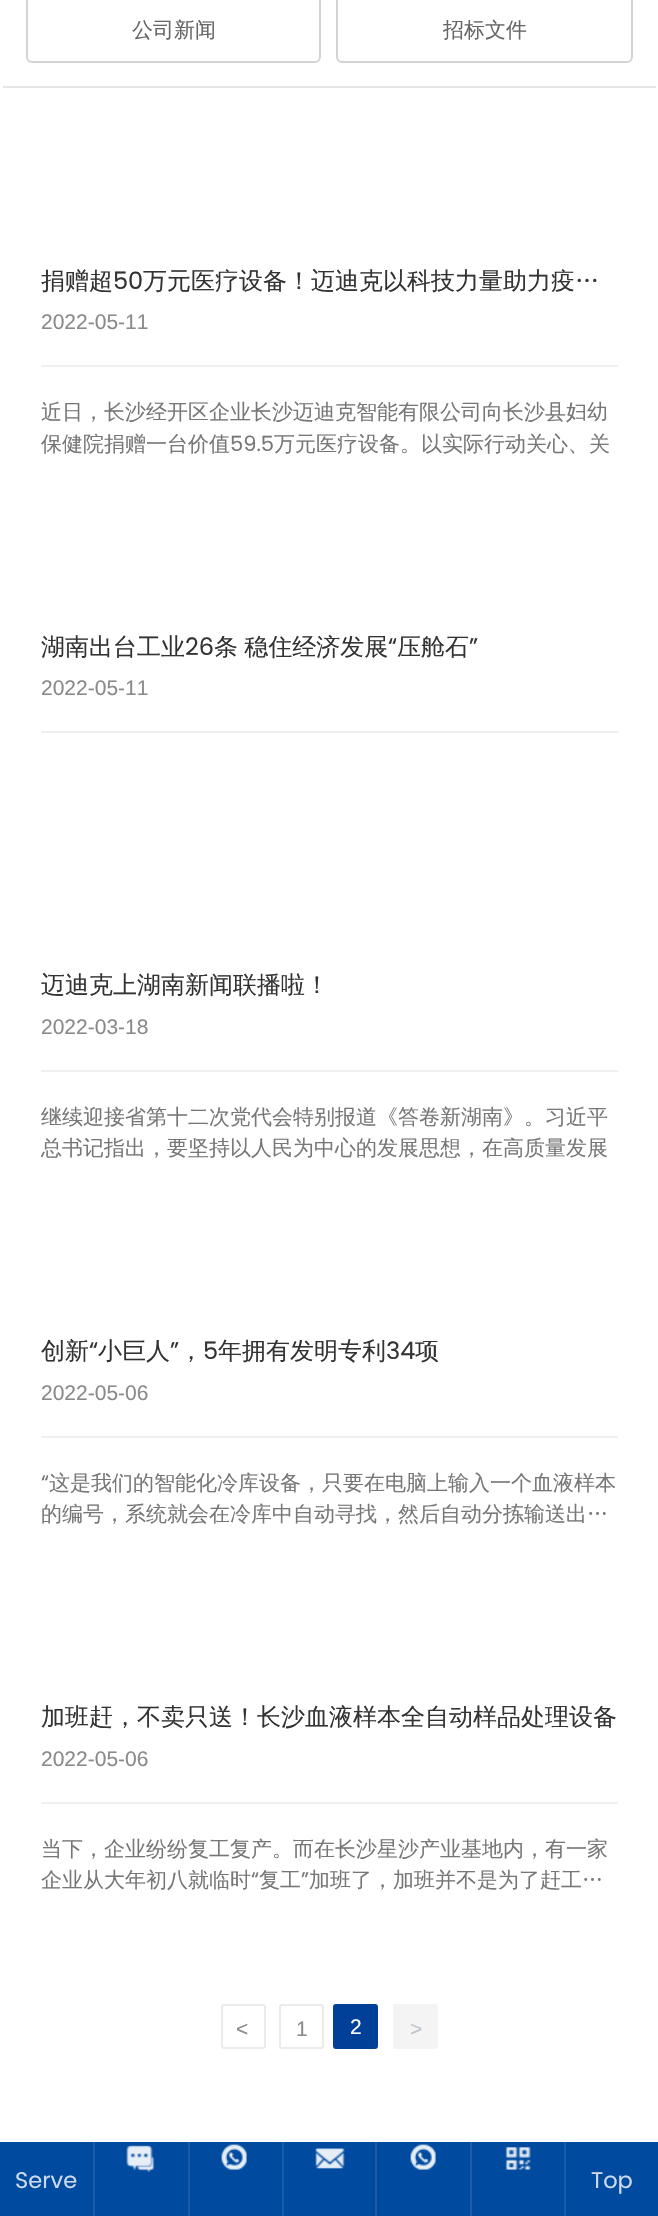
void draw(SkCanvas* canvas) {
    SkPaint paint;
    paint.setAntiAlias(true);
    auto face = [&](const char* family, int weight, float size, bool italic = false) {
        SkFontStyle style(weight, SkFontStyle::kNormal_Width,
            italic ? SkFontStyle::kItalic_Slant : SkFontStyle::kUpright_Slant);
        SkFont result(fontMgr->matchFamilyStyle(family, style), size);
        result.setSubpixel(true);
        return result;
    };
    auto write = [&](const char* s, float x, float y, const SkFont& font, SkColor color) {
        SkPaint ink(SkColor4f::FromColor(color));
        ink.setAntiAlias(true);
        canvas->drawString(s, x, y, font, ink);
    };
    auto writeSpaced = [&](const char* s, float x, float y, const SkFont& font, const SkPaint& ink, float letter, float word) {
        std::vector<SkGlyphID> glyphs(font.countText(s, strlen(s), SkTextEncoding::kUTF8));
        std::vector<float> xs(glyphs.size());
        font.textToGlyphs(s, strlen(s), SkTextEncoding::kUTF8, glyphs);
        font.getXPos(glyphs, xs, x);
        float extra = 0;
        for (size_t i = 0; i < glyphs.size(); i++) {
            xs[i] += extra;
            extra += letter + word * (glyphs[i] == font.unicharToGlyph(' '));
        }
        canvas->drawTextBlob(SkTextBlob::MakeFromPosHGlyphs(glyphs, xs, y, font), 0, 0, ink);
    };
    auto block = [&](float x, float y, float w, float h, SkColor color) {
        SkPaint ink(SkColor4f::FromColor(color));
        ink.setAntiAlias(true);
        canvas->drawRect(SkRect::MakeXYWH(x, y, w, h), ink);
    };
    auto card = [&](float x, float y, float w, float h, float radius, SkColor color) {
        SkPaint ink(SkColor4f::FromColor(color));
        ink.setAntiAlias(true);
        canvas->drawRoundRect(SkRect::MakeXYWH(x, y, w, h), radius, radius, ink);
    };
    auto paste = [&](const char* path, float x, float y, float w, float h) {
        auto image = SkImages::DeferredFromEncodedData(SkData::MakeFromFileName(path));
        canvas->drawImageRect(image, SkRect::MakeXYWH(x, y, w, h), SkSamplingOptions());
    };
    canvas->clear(SK_ColorWHITE);
    block(3, 86, 653, 2, SkColorSetRGB(230, 230, 230));
    paint.setStyle(SkPaint::kStroke_Style);
    paint.setStrokeWidth(2);
    paint.setColor(SkColorSetRGB(211, 211, 211));
    canvas->drawRoundRect(SkRect::MakeXYWH(27, -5, 293, 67), 5, 5, paint);
    auto kFont1 = face("WenQuanYi Zen Hei", 500, 21);
    write("公司新闻", 132, 37, kFont1, SkColorSetRGB(102, 102, 102));
    canvas->drawRoundRect(SkRect::MakeXYWH(337, -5, 295, 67), 5, 5, paint);
    write("招标文件", 443, 37, kFont1, SkColorSetRGB(102, 102, 102));
    auto kFont2 = face("WenQuanYi Zen Hei", 500, 24);
    write("捐赠超", 41, 289, kFont2, SkColorSetRGB(51, 51, 51));
    auto kFont3 = face("Poppins", 400, 24);
    write("50", 113, 289, kFont3, SkColorSetRGB(51, 51, 51));
    write("万元医疗设备！迈迪克以科技力量助力疫…", 143, 289, kFont2, SkColorSetRGB(51, 51, 51));
    auto kFont4 = face("Liberation Sans", 400, 21);
    write("2022-05-11", 41, 329, kFont4, SkColorSetRGB(138, 138, 138));
    block(41, 365, 577, 2, SkColorSetRGB(239, 239, 239));
    write("近日，长沙经开区企业长沙迈迪克智能有限公司向长沙县妇幼", 41, 419, kFont1, SkColorSetRGB(119, 119, 119));
    write("保健院捐赠一台价值", 41, 451, kFont1, SkColorSetRGB(119, 119, 119));
    auto kFont5 = face("Poppins", 400, 21);
    write("59.5", 230, 451, kFont5, SkColorSetRGB(119, 119, 119));
    write("万元医疗设备。以实际行动关心、关", 274, 451, kFont1, SkColorSetRGB(119, 119, 119));
    write("湖南出台工业", 41, 655, kFont2, SkColorSetRGB(51, 51, 51));
    write("26", 185, 655, kFont3, SkColorSetRGB(51, 51, 51));
    paint.setStyle(SkPaint::kFill_Style);
    paint.setColor(SkColorSetRGB(51, 51, 51));
    writeSpaced("条 稳住经济发展", 214, 655, kFont2, paint, 0, -1);
    write("“", 388, 655, kFont3, SkColorSetRGB(51, 51, 51));
    write("压舱石", 397, 655, kFont2, SkColorSetRGB(51, 51, 51));
    write("”", 469, 655, kFont3, SkColorSetRGB(51, 51, 51));
    write("2022-05-11", 41, 695, kFont4, SkColorSetRGB(138, 138, 138));
    block(41, 731, 577, 2, SkColorSetRGB(239, 239, 239));
    write("迈迪克上湖南新闻联播啦！", 41, 993, kFont2, SkColorSetRGB(51, 51, 51));
    write("2022-03-18", 41, 1034, kFont4, SkColorSetRGB(138, 138, 138));
    block(41, 1070, 577, 2, SkColorSetRGB(239, 239, 239));
    write("继续迎接省第十二次党代会特别报道《答卷新湖南》。习近平", 41, 1124, kFont1, SkColorSetRGB(119, 119, 119));
    write("总书记指出，要坚持以人民为中心的发展思想，在高质量发展", 41, 1155, kFont1, SkColorSetRGB(119, 119, 119));
    write("创新", 41, 1359, kFont2, SkColorSetRGB(51, 51, 51));
    write("“", 89, 1359, kFont3, SkColorSetRGB(51, 51, 51));
    write("小巨人", 98, 1359, kFont2, SkColorSetRGB(51, 51, 51));
    write("”", 170, 1359, kFont3, SkColorSetRGB(51, 51, 51));
    write("5", 203, 1359, kFont3, SkColorSetRGB(51, 51, 51));
    write("年拥有发明专利", 218, 1359, kFont2, SkColorSetRGB(51, 51, 51));
    write("34", 386, 1359, kFont3, SkColorSetRGB(51, 51, 51));
    write("项", 415, 1359, kFont2, SkColorSetRGB(51, 51, 51));
    write("，", 179, 1359, kFont2, SkColorSetRGB(51, 51, 51));
    write("2022-05-06", 41, 1400, kFont4, SkColorSetRGB(138, 138, 138));
    block(41, 1436, 577, 2, SkColorSetRGB(239, 239, 239));
    write("“", 41, 1490, kFont5, SkColorSetRGB(119, 119, 119));
    write("这是我们的智能化冷库设备，只要在电脑上输入一个血液样本", 49, 1490, kFont1, SkColorSetRGB(119, 119, 119));
    write("的编号，系统就会在冷库中自动寻找，然后自动分拣输送出…", 41, 1521, kFont1, SkColorSetRGB(119, 119, 119));
    write("加班赶，不卖只送！长沙血液样本全自动样品处理设备", 41, 1725, kFont2, SkColorSetRGB(51, 51, 51));
    write("2022-05-06", 41, 1766, kFont4, SkColorSetRGB(138, 138, 138));
    block(41, 1802, 577, 2, SkColorSetRGB(239, 239, 239));
    write("当下，企业纷纷复工复产。而在长沙星沙产业基地内，有一家", 41, 1856, kFont1, SkColorSetRGB(119, 119, 119));
    write("企业从大年初八就临时", 41, 1887, kFont1, SkColorSetRGB(119, 119, 119));
    write("“", 251, 1887, kFont5, SkColorSetRGB(119, 119, 119));
    write("复工", 259, 1887, kFont1, SkColorSetRGB(119, 119, 119));
    write("”", 301, 1887, kFont5, SkColorSetRGB(119, 119, 119));
    write("加班了，加班并不是为了赶工…", 309, 1887, kFont1, SkColorSetRGB(119, 119, 119));
    paint.setStyle(SkPaint::kStroke_Style);
    paint.setColor(SkColorSetRGB(235, 235, 235));
    canvas->drawRoundRect(SkRect::MakeXYWH(222, 2005, 43, 43), 2, 2, paint);
    write("<", 236, 2036, kFont4, SkColorSetRGB(138, 138, 138));
    canvas->drawRoundRect(SkRect::MakeXYWH(280, 2005, 43, 43), 2, 2, paint);
    write("1", 296, 2036, kFont4, SkColorSetRGB(138, 138, 138));
    card(333, 2004, 45, 45, 3, SkColorSetRGB(0, 64, 152));
    write("2", 350, 2034, kFont4, SK_ColorWHITE);
    paint.setStyle(SkPaint::kFill_Style);
    paint.setColor(SkColorSetRGB(244, 244, 245));
    canvas->drawRoundRect(SkRect::MakeXYWH(394, 2005, 43, 43), 2, 2, paint);
    paint.setStyle(SkPaint::kStroke_Style);
    canvas->drawRoundRect(SkRect::MakeXYWH(394, 2005, 43, 43), 2, 2, paint);
    write(">", 410, 2036, kFont4, SkColorSetRGB(192, 196, 204));
    block(0, 2142, 658, 74, SkColorSetRGB(0, 74, 159));
    block(93, 2142, 2, 74, SkColorSetRGB(26, 92, 169));
    auto kFont6 = face("Poppins", 400, 22.5f);
    write("Serve", 15, 2188, kFont6, SkColorSetRGB(204, 219, 236));
    block(188, 2142, 2, 74, SkColorSetRGB(26, 92, 169));
    paste("pic1.png", 126, 2145, 29, 28);
    block(282, 2142, 2, 74, SkColorSetRGB(26, 92, 169));
    paste("pic2.png", 221, 2144, 26, 26);
    block(375, 2142, 2, 74, SkColorSetRGB(26, 92, 169));
    paste("pic3.png", 315, 2148, 30, 21);
    block(470, 2142, 2, 74, SkColorSetRGB(26, 92, 169));
    paste("pic2.png", 410, 2144, 26, 26);
    block(564, 2142, 2, 74, SkColorSetRGB(26, 92, 169));
    paste("pic4.png", 505, 2147, 26, 23);
    write("Top", 591, 2188, kFont6, SkColorSetRGB(204, 219, 236));
}
